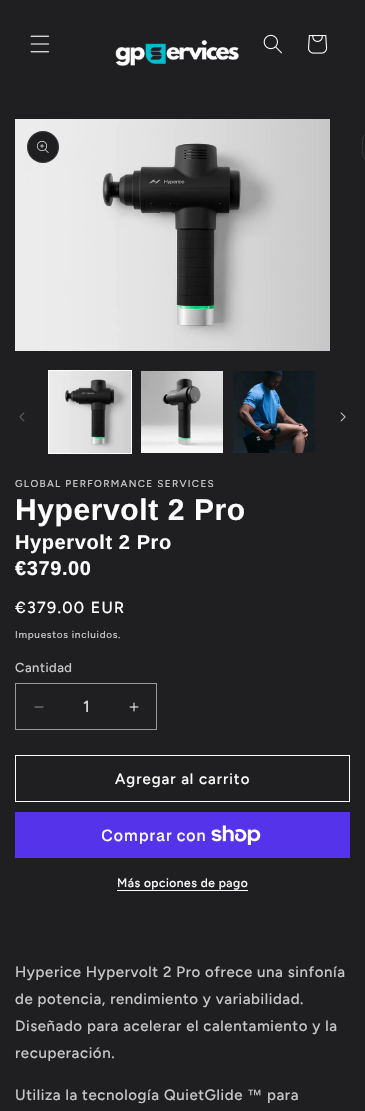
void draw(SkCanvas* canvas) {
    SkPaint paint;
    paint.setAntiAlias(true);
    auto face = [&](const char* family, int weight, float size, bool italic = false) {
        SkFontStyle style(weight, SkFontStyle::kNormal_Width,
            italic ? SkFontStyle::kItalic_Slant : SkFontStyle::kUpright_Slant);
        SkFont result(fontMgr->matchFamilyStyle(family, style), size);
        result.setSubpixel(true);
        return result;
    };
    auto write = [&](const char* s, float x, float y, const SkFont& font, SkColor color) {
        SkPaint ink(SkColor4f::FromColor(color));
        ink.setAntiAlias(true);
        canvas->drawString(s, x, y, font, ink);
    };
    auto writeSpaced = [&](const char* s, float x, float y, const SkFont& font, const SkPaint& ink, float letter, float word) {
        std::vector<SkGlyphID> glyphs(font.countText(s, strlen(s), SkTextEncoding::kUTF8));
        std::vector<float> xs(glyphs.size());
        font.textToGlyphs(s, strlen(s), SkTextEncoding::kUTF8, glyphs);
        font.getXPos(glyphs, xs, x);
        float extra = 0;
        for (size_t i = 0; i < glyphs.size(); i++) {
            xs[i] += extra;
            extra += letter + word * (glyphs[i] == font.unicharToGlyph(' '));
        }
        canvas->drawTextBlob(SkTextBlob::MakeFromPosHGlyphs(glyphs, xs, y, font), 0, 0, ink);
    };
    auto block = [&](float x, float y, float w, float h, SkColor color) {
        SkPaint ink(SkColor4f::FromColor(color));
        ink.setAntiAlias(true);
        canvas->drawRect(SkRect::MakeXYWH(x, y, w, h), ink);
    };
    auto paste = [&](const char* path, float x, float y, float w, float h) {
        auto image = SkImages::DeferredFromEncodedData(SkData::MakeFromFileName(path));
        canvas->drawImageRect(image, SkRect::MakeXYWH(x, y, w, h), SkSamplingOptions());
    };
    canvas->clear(SkColorSetRGB(31, 31, 33));
    paste("pic1.png", 30, 35, 20, 18);
    paste("pic2.png", 115, 39, 124, 27);
    paste("pic3.png", 263, 34, 19, 20);
    paste("pic4.png", 308, 35, 20, 19);
    paste("pic5.png", 15, 119, 315, 232);
    paint.setColor(SkColorSetRGB(31, 31, 33));
    canvas->drawCircle(43, 147, 16, paint);
    paint.setStyle(SkPaint::kStroke_Style);
    paint.setStrokeWidth(1);
    paint.setColor(SkColorSetARGB(26, 255, 255, 255));
    canvas->drawCircle(43, 147, 15.5f, paint);
    paste("pic6.png", 37, 141, 12, 12);
    paint.setColor(SkColorSetRGB(53, 53, 55));
    canvas->drawRoundRect(SkRect::MakeXYWH(362.5f, 131.5f, 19, 31), 15.5f, 15.5f, paint);
    paste("pic7.png", 19, 412, 6, 10);
    paint.setColor(SK_ColorWHITE);
    canvas->drawRect(SkRect::MakeXYWH(48.5f, 370.5f, 83, 83), paint);
    paste("pic8.png", 49, 371, 82, 82);
    paste("pic9.png", 141, 371, 82, 82);
    paste("pic10.png", 233, 371, 82, 82);
    paste("pic11.png", 340, 412, 6, 10);
    auto kFont1 = face("Figtree", 500, 10);
    paint.setStyle(SkPaint::kFill_Style);
    paint.setColor(SkColorSetRGB(199, 199, 200));
    writeSpaced("GLOBAL PERFORMANCE SERVICES", 15, 487, kFont1, paint, 1.3f, 0);
    auto kFont2 = face("Liberation Sans", 700, 30);
    paint.setColor(SK_ColorWHITE);
    writeSpaced("Hypervolt 2 Pro", 15, 520, kFont2, paint, 0.6f, 0);
    auto kFont3 = face("Liberation Sans", 700, 20);
    writeSpaced("Hypervolt 2 Pro", 15, 549, kFont3, paint, 0.6f, 0);
    writeSpaced("€379.00", 15, 575, kFont3, paint, 0.6f, 0);
    auto kFont4 = face("Figtree", 500, 16);
    writeSpaced("€379.00 EUR", 15, 613, kFont4, paint, 1.3f, 0);
    paint.setColor(SkColorSetRGB(199, 199, 200));
    writeSpaced("Impuestos incluidos.", 15, 638, kFont1, paint, 0.7f, 0);
    auto kFont5 = face("Figtree", 500, 13);
    writeSpaced("Cantidad", 15, 672, kFont5, paint, 0.5f, 0);
    paste("pic12.png", 34, 706, 10, 2);
    paste("pic13.png", 129, 702, 10, 10);
    paint.setStyle(SkPaint::kStroke_Style);
    paint.setColor(SkColorSetRGB(154, 154, 155));
    canvas->drawRect(SkRect::MakeXYWH(15.5f, 683.5f, 141, 46), paint);
    write("1", 83, 712, kFont4, SkColorSetRGB(221, 221, 222));
    paint.setColor(SK_ColorWHITE);
    canvas->drawRect(SkRect::MakeXYWH(15.5f, 755.5f, 334, 46), paint);
    auto kFont6 = face("Figtree", 500, 15);
    paint.setStyle(SkPaint::kFill_Style);
    writeSpaced("Agregar al carrito", 115, 784, kFont6, paint, 1, 0);
    block(15, 812, 335, 46, SkColorSetRGB(84, 51, 235));
    auto kFont7 = face("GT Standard", 500, 16);
    writeSpaced("Comprar con", 101, 841, kFont7, paint, 0.6f, 0);
    paste("pic14.png", 211, 825, 50, 20);
    auto kFont8 = face("Figtree", 500, 12);
    writeSpaced("Más opciones de pago", 117, 887, kFont8, paint, 0.5f, 0);
    block(117, 890, 131, 1, SK_ColorWHITE);
    paint.setColor(SkColorSetRGB(199, 199, 200));
    writeSpaced("Hyperice Hypervolt 2 Pro ofrece una sinfonía", 15, 977, kFont6, paint, 0.6f, 0);
    writeSpaced("de potencia, rendimiento y variabilidad.", 15, 1004, kFont6, paint, 0.6f, 0);
    writeSpaced("Diseñado para acelerar el calentamiento y la", 15, 1031, kFont6, paint, 0.6f, 0);
    writeSpaced("recuperación.", 15, 1058, kFont6, paint, 0.6f, 0);
    writeSpaced("Utiliza la tecnología QuietGlide", 15, 1100, kFont6, paint, 0.6f, 0);
    auto kFont9 = face("Liberation Sans", 400, 15);
    writeSpaced("™", 247, 1100, kFont9, paint, 0.6f, 0);
    writeSpaced("para", 267, 1100, kFont6, paint, 0.6f, 0);
}
